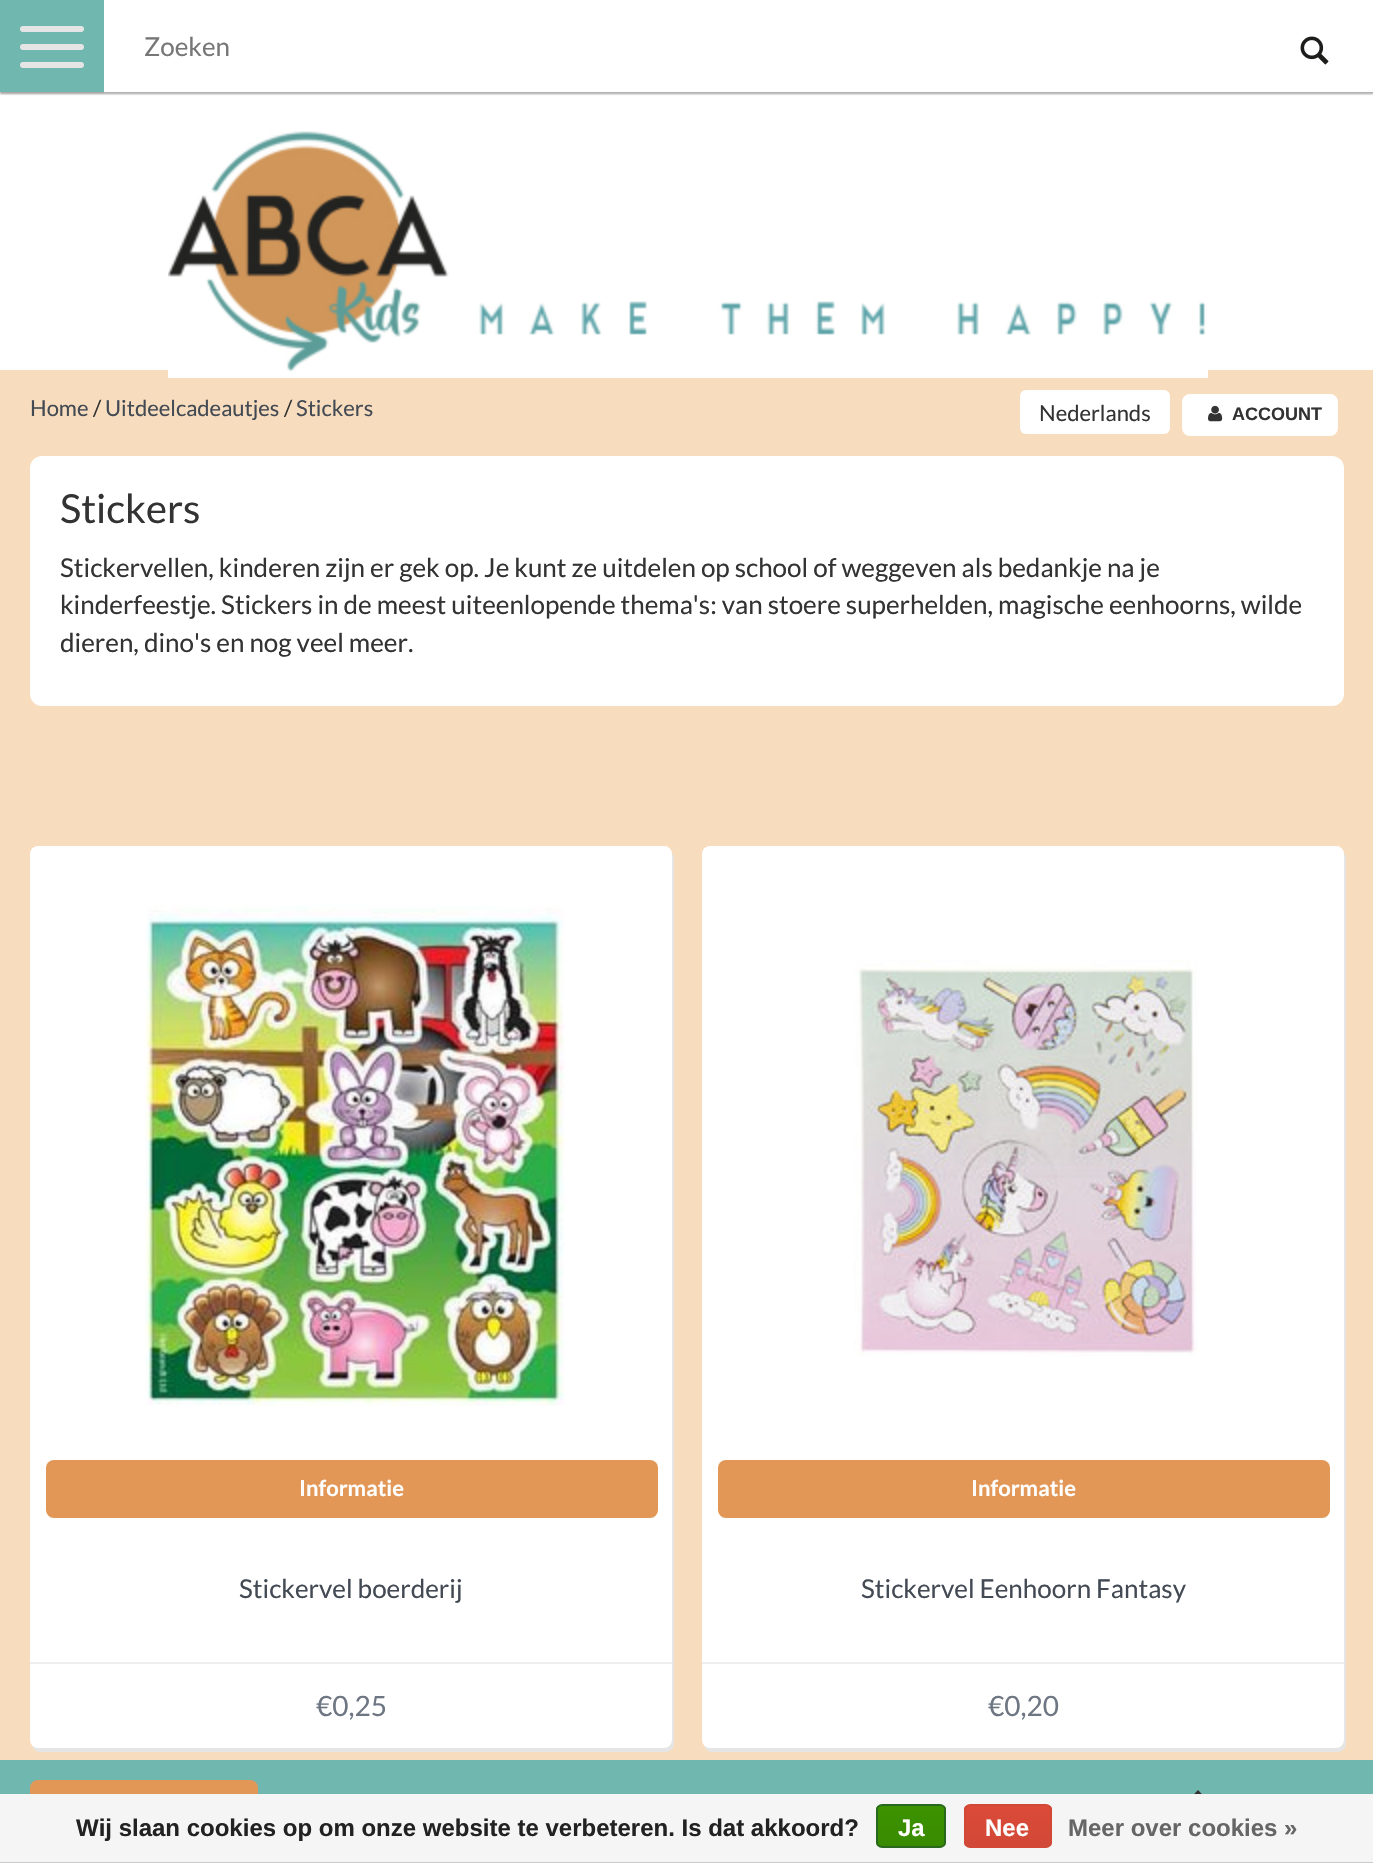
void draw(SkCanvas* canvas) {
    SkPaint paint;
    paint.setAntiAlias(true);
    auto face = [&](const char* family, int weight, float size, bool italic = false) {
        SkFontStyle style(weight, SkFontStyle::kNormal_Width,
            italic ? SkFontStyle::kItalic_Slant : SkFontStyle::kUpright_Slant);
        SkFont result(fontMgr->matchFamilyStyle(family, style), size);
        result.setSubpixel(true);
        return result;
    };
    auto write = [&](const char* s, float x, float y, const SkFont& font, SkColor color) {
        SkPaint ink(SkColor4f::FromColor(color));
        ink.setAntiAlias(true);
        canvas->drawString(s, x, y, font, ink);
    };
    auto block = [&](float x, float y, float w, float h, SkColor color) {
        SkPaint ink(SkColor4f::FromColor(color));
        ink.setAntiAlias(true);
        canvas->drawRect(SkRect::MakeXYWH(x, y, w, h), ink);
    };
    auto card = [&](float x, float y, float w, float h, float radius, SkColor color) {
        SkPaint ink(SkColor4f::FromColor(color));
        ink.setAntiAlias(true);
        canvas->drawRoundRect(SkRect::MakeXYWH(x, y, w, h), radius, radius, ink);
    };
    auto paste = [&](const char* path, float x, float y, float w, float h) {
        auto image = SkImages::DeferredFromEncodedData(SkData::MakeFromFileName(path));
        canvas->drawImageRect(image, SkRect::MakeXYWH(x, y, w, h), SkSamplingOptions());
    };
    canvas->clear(SkColorSetRGB(247, 221, 189));
    block(0, 92, 1373, 278, SK_ColorWHITE);
    paint.setColor(SkColorSetARGB(51, 0, 0, 0));
    paint.setMaskFilter(SkMaskFilter::MakeBlur(kNormal_SkBlurStyle, 1));
    canvas->drawRect(SkRect::MakeXYWH(0, 2, 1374, 92), paint);
    paint.setMaskFilter(nullptr);
    block(0, 0, 104, 92, SkColorSetRGB(112, 183, 175));
    canvas->save();
    canvas->clipRect(SkRect::MakeXYWH(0, 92, 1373, 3));
    paint.setMaskFilter(SkMaskFilter::MakeBlur(kNormal_SkBlurStyle, 1));
    canvas->drawRect(SkRect::MakeXYWH(0, 2, 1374, 92), paint);
    paint.setMaskFilter(nullptr);
    canvas->restore();
    card(20, 26, 64, 6, 3, SkColorSetRGB(229, 229, 229));
    card(20, 44, 64, 6, 3, SkColorSetRGB(229, 229, 229));
    card(20, 62, 64, 6, 3, SkColorSetRGB(229, 229, 229));
    block(104, 92, 1269, 2, SkColorSetARGB(26, 255, 255, 255));
    block(104, 0, 1269, 92, SK_ColorWHITE);
    auto kFont1 = face("Lato", 400, 26);
    write("Zoeken", 144, 56, kFont1, SkColorSetRGB(119, 119, 119));
    paste("pic1.png", 1300, 36, 29, 29);
    paste("pic2.png", 168, 131, 1040, 247);
    auto kFont2 = face("Lato", 400, 22);
    write("Home", 30, 416, kFont2, SkColorSetRGB(67, 74, 84));
    write("/", 93, 416, kFont2, SkColorSetRGB(51, 51, 51));
    write("Uitdeelcadeautjes", 105, 416, kFont2, SkColorSetRGB(67, 74, 84));
    write("/", 284, 416, kFont2, SkColorSetRGB(51, 51, 51));
    write("Stickers", 296, 416, kFont2, SkColorSetRGB(67, 74, 84));
    card(1020, 390, 150, 44, 6, SK_ColorWHITE);
    write("Nederlands", 1039, 421, kFont2, SkColorSetRGB(51, 51, 51));
    card(1182, 394, 156, 42, 8, SK_ColorWHITE);
    paste("pic3.png", 1208, 405, 15, 17);
    auto kFont3 = face("Liberation Sans", 700, 18);
    write("ACCOUNT", 1232, 420, kFont3, SkColorSetRGB(51, 51, 51));
    card(30, 456, 1314, 250, 12, SK_ColorWHITE);
    auto kFont4 = face("Lato", 400, 40);
    write("Stickers", 60, 523, kFont4, SkColorSetRGB(51, 51, 51));
    write("Stickervellen, kinderen zijn er gek op. Je kunt ze uitdelen op school of weggeven als bedankje na je", 60, 577, kFont1, SkColorSetRGB(51, 51, 51));
    write("kinderfeestje. Stickers in de meest uiteenlopende thema's: van stoere superhelden, magische eenhoorns, wilde", 60, 614, kFont1, SkColorSetRGB(51, 51, 51));
    write("dieren, dino's en nog veel meer.", 60, 652, kFont1, SkColorSetRGB(51, 51, 51));
    paint.setColor(SkColorSetRGB(229, 229, 229));
    canvas->drawPath(SkPathBuilder().moveTo(32, 1745).cubicTo(33, 1749, 36, 1752, 40, 1752).lineTo(666, 1752).cubicTo(670, 1752, 674, 1748, 674, 1744).lineTo(674, 858).cubicTo(674, 856, 673, 854, 672, 853).lineTo(672, 1740).cubicTo(672, 1744, 668, 1748, 664, 1748).lineTo(38, 1748).cubicTo(36, 1748, 34, 1747, 32, 1745).close().detach(), paint);
    card(30, 846, 642, 902, 8, SK_ColorWHITE);
    paste("pic4.png", 145, 905, 420, 501);
    card(46, 1460, 612, 58, 8, SkColorSetRGB(227, 151, 86));
    auto kFont5 = face("Lato", 700, 22);
    write("Informatie", 299, 1496, kFont5, SK_ColorWHITE);
    write("Stickervel boerderij", 239, 1598, kFont1, SkColorSetRGB(67, 74, 84));
    block(30, 1662, 642, 2, SkColorSetRGB(238, 238, 238));
    auto kFont6 = face("Lato", 400, 28);
    write("€0,25", 316, 1716, kFont6, SkColorSetRGB(109, 118, 130));
    canvas->drawPath(SkPathBuilder().moveTo(704, 1745).cubicTo(705, 1749, 708, 1752, 712, 1752).lineTo(1338, 1752).cubicTo(1342, 1752, 1346, 1748, 1346, 1744).lineTo(1346, 858).cubicTo(1346, 856, 1345, 854, 1344, 853).lineTo(1344, 1740).cubicTo(1344, 1744, 1340, 1748, 1336, 1748).lineTo(710, 1748).cubicTo(708, 1748, 706, 1747, 704, 1745).close().detach(), paint);
    card(702, 846, 642, 902, 8, SK_ColorWHITE);
    paste("pic5.png", 854, 960, 344, 396);
    card(718, 1460, 612, 58, 8, SkColorSetRGB(227, 151, 86));
    write("Informatie", 971, 1496, kFont5, SK_ColorWHITE);
    write("Stickervel Eenhoorn Fantasy", 861, 1598, kFont1, SkColorSetRGB(67, 74, 84));
    block(702, 1662, 642, 2, SkColorSetRGB(238, 238, 238));
    write("€0,20", 988, 1716, kFont6, SkColorSetRGB(109, 118, 130));
    block(0, 1760, 1373, 34, SkColorSetRGB(112, 183, 175));
    card(30, 1780, 228, 64, 8, SkColorSetRGB(227, 151, 86));
    paint.setColor(SkColorSetRGB(51, 51, 51));
    canvas->drawPath(SkPathBuilder().moveTo(1175, 1814).lineTo(1184, 1823).lineTo(1198, 1809).lineTo(1212, 1823).lineTo(1221, 1814).lineTo(1198, 1790).close().detach(), paint);
    block(0, 1794, 1373, 68, SkColorSetRGB(245, 245, 245));
    block(0, 1862, 1373, 1, SkColorSetRGB(204, 204, 204));
    auto kFont7 = face("Liberation Sans", 700, 24);
    write("Wij slaan cookies op om onze website te verbeteren. Is dat akkoord?", 76, 1836, kFont7, SkColorSetRGB(34, 34, 34));
    canvas->save();
    canvas->clipPath(SkPathBuilder().moveTo(882, 1804).lineTo(940, 1804).cubicTo(943.5f, 1804, 946, 1806.5f, 946, 1810).lineTo(946, 1842).cubicTo(946, 1845.5f, 943.5f, 1848, 940, 1848).lineTo(882, 1848).cubicTo(878.5f, 1848, 876, 1845.5f, 876, 1842).lineTo(876, 1810).cubicTo(876, 1806.5f, 878.5f, 1804, 882, 1804).close().detach(), true);
    {
        const SkColor colors[] = {SkColorSetRGB(60, 147, 0), SkColorSetRGB(57, 138, 0)};
        const float stops[] = {0, 1};
        const SkPoint ends[] = {{911, 1806}, {911, 1846}};
        paint.setShader(SkGradientShader::MakeLinear(ends, colors, stops, 2, SkTileMode::kClamp));
        paint.setAlpha(255);
    }
    canvas->drawRect(SkRect::MakeXYWH(876, 1806, 70, 40), paint);
    canvas->restore();
    paint.setStyle(SkPaint::kStroke_Style);
    paint.setStrokeWidth(2);
    paint.setShader(nullptr);
    paint.setColor(SkColorSetRGB(41, 105, 29));
    canvas->drawRoundRect(SkRect::MakeXYWH(877, 1805, 68, 42), 5, 5, paint);
    write("Ja", 898, 1836, kFont7, SK_ColorWHITE);
    canvas->save();
    canvas->clipPath(SkPathBuilder().moveTo(970, 1804).lineTo(1046, 1804).cubicTo(1049.5f, 1804, 1052, 1806.5f, 1052, 1810).lineTo(1052, 1842).cubicTo(1052, 1845.5f, 1049.5f, 1848, 1046, 1848).lineTo(970, 1848).cubicTo(966.5f, 1848, 964, 1845.5f, 964, 1842).lineTo(964, 1810).cubicTo(964, 1806.5f, 966.5f, 1804, 970, 1804).close().detach(), true);
    paint.setStyle(SkPaint::kFill_Style);
    {
        const SkColor colors[] = {SkColorSetRGB(220, 74, 56), SkColorSetRGB(209, 72, 54)};
        const float stops[] = {0, 1};
        const SkPoint ends[] = {{1008, 1806}, {1008, 1846}};
        paint.setShader(SkGradientShader::MakeLinear(ends, colors, stops, 2, SkTileMode::kClamp));
        paint.setAlpha(255);
    }
    canvas->drawRect(SkRect::MakeXYWH(964, 1806, 88, 40), paint);
    canvas->restore();
    paint.setStyle(SkPaint::kStroke_Style);
    paint.setShader(nullptr);
    paint.setColor(SkColorSetRGB(209, 72, 54));
    canvas->drawRoundRect(SkRect::MakeXYWH(965, 1805, 86, 42), 5, 5, paint);
    write("Nee", 985, 1836, kFont7, SK_ColorWHITE);
    write("Meer over cookies »", 1068, 1836, kFont7, SkColorSetRGB(102, 102, 102));
}
